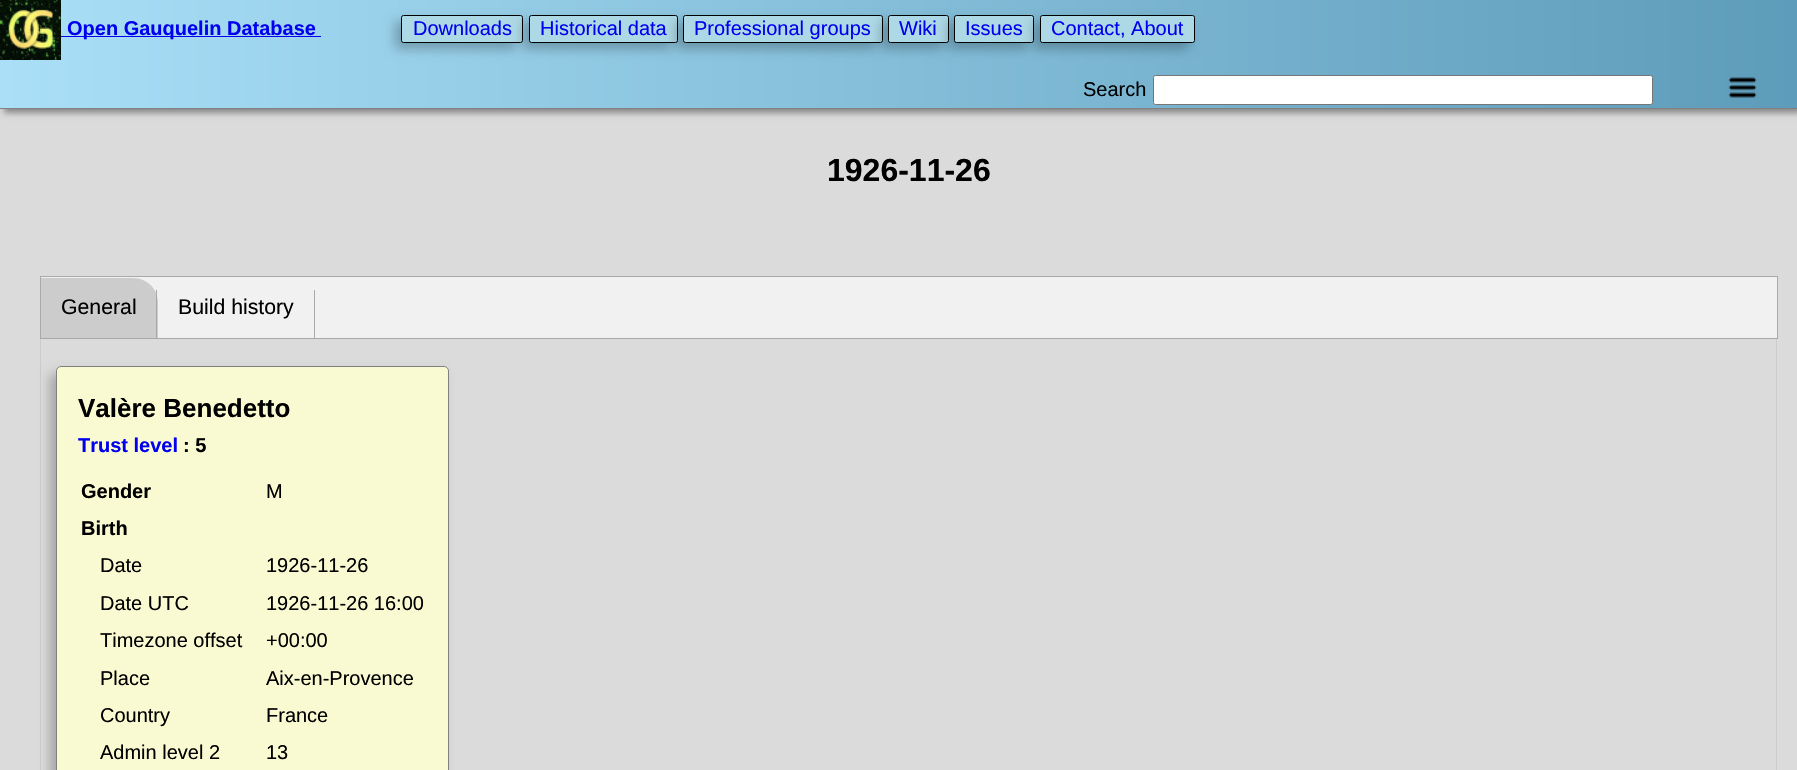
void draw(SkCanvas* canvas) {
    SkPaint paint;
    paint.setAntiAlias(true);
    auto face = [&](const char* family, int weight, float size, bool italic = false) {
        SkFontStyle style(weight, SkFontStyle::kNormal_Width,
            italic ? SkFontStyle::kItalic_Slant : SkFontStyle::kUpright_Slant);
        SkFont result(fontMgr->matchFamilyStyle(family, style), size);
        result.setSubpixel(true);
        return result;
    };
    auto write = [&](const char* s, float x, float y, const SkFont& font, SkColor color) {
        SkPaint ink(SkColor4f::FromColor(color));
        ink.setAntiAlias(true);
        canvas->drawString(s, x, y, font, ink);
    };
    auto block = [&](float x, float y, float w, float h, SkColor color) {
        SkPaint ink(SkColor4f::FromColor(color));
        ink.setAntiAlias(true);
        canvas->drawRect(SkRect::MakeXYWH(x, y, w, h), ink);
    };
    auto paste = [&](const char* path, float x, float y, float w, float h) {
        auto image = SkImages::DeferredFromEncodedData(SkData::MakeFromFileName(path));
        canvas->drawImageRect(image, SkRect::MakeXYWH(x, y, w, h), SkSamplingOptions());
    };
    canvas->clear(SkColorSetRGB(219, 219, 219));
    paint.setColor(SkColorSetRGB(136, 136, 136));
    paint.setMaskFilter(SkMaskFilter::MakeBlur(kNormal_SkBlurStyle, 3));
    canvas->drawRect(SkRect::MakeXYWH(4, 4, 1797, 109), paint);
    paint.setMaskFilter(nullptr);
    {
        const SkColor colors[] = {SkColorSetRGB(93, 156, 186), SkColorSetRGB(170, 223, 247)};
        const float stops[] = {0, 1};
        const SkPoint ends[] = {{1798, 54}, {0, 54}};
        paint.setShader(SkGradientShader::MakeLinear(ends, colors, stops, 2, SkTileMode::kClamp));
        paint.setAlpha(255);
    }
    canvas->drawRect(SkRect::MakeXYWH(0, 0, 1797, 108), paint);
    block(0, 108, 1797, 1, SkColorSetRGB(128, 128, 128));
    paste("pic1.png", 0, 0, 61, 60);
    block(61, 36, 260, 1, SkColorSetRGB(0, 0, 238));
    auto kFont1 = face("Liberation Sans", 700, 20);
    write("Open Gauquelin Database", 67, 35, kFont1, SkColorSetRGB(0, 0, 238));
    paint.setShader(nullptr);
    paint.setColor(SkColorSetARGB(64, 0, 0, 0));
    paint.setMaskFilter(SkMaskFilter::MakeBlur(kNormal_SkBlurStyle, 6));
    canvas->drawRoundRect(SkRect::MakeXYWH(395, 21, 121, 28), 2.5f, 2.5f, paint);
    paint.setMaskFilter(nullptr);
    paint.setColor(SkColorSetRGB(173, 216, 230));
    canvas->drawRoundRect(SkRect::MakeXYWH(401.5f, 15.5f, 121, 27), 2, 2, paint);
    paint.setStyle(SkPaint::kStroke_Style);
    paint.setStrokeWidth(1);
    paint.setColor(SK_ColorBLACK);
    canvas->drawRoundRect(SkRect::MakeXYWH(401.5f, 15.5f, 121, 27), 2, 2, paint);
    auto kFont2 = face("Liberation Sans", 400, 20);
    write("Downloads", 413, 35, kFont2, SkColorSetRGB(0, 0, 238));
    paint.setStyle(SkPaint::kFill_Style);
    paint.setColor(SkColorSetARGB(64, 0, 0, 0));
    paint.setMaskFilter(SkMaskFilter::MakeBlur(kNormal_SkBlurStyle, 6));
    canvas->drawRoundRect(SkRect::MakeXYWH(523, 21, 148, 28), 2.5f, 2.5f, paint);
    paint.setMaskFilter(nullptr);
    paint.setColor(SkColorSetRGB(173, 216, 230));
    canvas->drawRoundRect(SkRect::MakeXYWH(529.5f, 15.5f, 148, 27), 2, 2, paint);
    paint.setStyle(SkPaint::kStroke_Style);
    paint.setColor(SK_ColorBLACK);
    canvas->drawRoundRect(SkRect::MakeXYWH(529.5f, 15.5f, 148, 27), 2, 2, paint);
    write("Historical data", 540, 35, kFont2, SkColorSetRGB(0, 0, 238));
    paint.setStyle(SkPaint::kFill_Style);
    paint.setColor(SkColorSetARGB(64, 0, 0, 0));
    paint.setMaskFilter(SkMaskFilter::MakeBlur(kNormal_SkBlurStyle, 6));
    canvas->drawRoundRect(SkRect::MakeXYWH(676, 21, 200, 28), 2.5f, 2.5f, paint);
    paint.setMaskFilter(nullptr);
    paint.setColor(SkColorSetRGB(173, 216, 230));
    canvas->drawRoundRect(SkRect::MakeXYWH(683.5f, 15.5f, 199, 27), 2, 2, paint);
    paint.setStyle(SkPaint::kStroke_Style);
    paint.setColor(SK_ColorBLACK);
    canvas->drawRoundRect(SkRect::MakeXYWH(683.5f, 15.5f, 199, 27), 2, 2, paint);
    write("Professional groups", 694, 35, kFont2, SkColorSetRGB(0, 0, 238));
    paint.setStyle(SkPaint::kFill_Style);
    paint.setColor(SkColorSetARGB(64, 0, 0, 0));
    paint.setMaskFilter(SkMaskFilter::MakeBlur(kNormal_SkBlurStyle, 6));
    canvas->drawRoundRect(SkRect::MakeXYWH(881, 21, 62, 28), 2.5f, 2.5f, paint);
    paint.setMaskFilter(nullptr);
    paint.setColor(SkColorSetRGB(173, 216, 230));
    canvas->drawRoundRect(SkRect::MakeXYWH(888.5f, 15.5f, 60, 27), 2, 2, paint);
    paint.setStyle(SkPaint::kStroke_Style);
    paint.setColor(SK_ColorBLACK);
    canvas->drawRoundRect(SkRect::MakeXYWH(888.5f, 15.5f, 60, 27), 2, 2, paint);
    write("Wiki", 899, 35, kFont2, SkColorSetRGB(0, 0, 238));
    paint.setStyle(SkPaint::kFill_Style);
    paint.setColor(SkColorSetARGB(64, 0, 0, 0));
    paint.setMaskFilter(SkMaskFilter::MakeBlur(kNormal_SkBlurStyle, 6));
    canvas->drawRoundRect(SkRect::MakeXYWH(948, 21, 80, 28), 2.5f, 2.5f, paint);
    paint.setMaskFilter(nullptr);
    paint.setColor(SkColorSetRGB(173, 216, 230));
    canvas->drawRoundRect(SkRect::MakeXYWH(954.5f, 15.5f, 79, 27), 2, 2, paint);
    paint.setStyle(SkPaint::kStroke_Style);
    paint.setColor(SK_ColorBLACK);
    canvas->drawRoundRect(SkRect::MakeXYWH(954.5f, 15.5f, 79, 27), 2, 2, paint);
    write("Issues", 965, 35, kFont2, SkColorSetRGB(0, 0, 238));
    paint.setStyle(SkPaint::kFill_Style);
    paint.setColor(SkColorSetARGB(64, 0, 0, 0));
    paint.setMaskFilter(SkMaskFilter::MakeBlur(kNormal_SkBlurStyle, 6));
    canvas->drawRoundRect(SkRect::MakeXYWH(1034, 21, 155, 28), 2.5f, 2.5f, paint);
    paint.setMaskFilter(nullptr);
    paint.setColor(SkColorSetRGB(173, 216, 230));
    canvas->drawRoundRect(SkRect::MakeXYWH(1040.5f, 15.5f, 154, 27), 2, 2, paint);
    paint.setStyle(SkPaint::kStroke_Style);
    paint.setColor(SK_ColorBLACK);
    canvas->drawRoundRect(SkRect::MakeXYWH(1040.5f, 15.5f, 154, 27), 2, 2, paint);
    write("Contact, About", 1051, 35, kFont2, SkColorSetRGB(0, 0, 238));
    write("Search", 1083, 96, kFont2, SK_ColorBLACK);
    paint.setStyle(SkPaint::kFill_Style);
    paint.setColor(SK_ColorWHITE);
    canvas->drawRoundRect(SkRect::MakeXYWH(1153.5f, 75.5f, 499, 29), 2, 2, paint);
    paint.setStyle(SkPaint::kStroke_Style);
    paint.setColor(SkColorSetRGB(118, 118, 118));
    canvas->drawRoundRect(SkRect::MakeXYWH(1153.5f, 75.5f, 499, 29), 2, 2, paint);
    paste("pic2.png", 1728, 77, 29, 21);
    auto kFont3 = face("Liberation Sans", 700, 32);
    write("1926-11-26", 827, 181, kFont3, SK_ColorBLACK);
    paint.setStyle(SkPaint::kFill_Style);
    paint.setColor(SkColorSetRGB(241, 241, 241));
    canvas->drawRect(SkRect::MakeXYWH(40.5f, 276.5f, 1737, 62), paint);
    paint.setStyle(SkPaint::kStroke_Style);
    paint.setColor(SkColorSetRGB(169, 169, 169));
    canvas->drawRect(SkRect::MakeXYWH(40.5f, 276.5f, 1737, 62), paint);
    paint.setStyle(SkPaint::kFill_Style);
    paint.setColor(SkColorSetRGB(204, 204, 204));
    canvas->drawPath(SkPathBuilder().moveTo(41, 278).lineTo(133, 278).cubicTo(147, 278, 158, 289, 158, 303).lineTo(158, 338).lineTo(41, 338).close().detach(), paint);
    block(156, 290, 1, 48, SkColorSetRGB(169, 169, 169));
    auto kFont4 = face("Liberation Sans", 400, 21.25f);
    write("General", 61, 314, kFont4, SK_ColorBLACK);
    block(314, 290, 1, 48, SkColorSetRGB(169, 169, 169));
    write("Build history", 178, 314, kFont4, SK_ColorBLACK);
    block(1776, 339, 1, 431, SkColorSetRGB(204, 204, 204));
    block(40, 339, 1, 431, SkColorSetRGB(204, 204, 204));
    paint.setColor(SkColorSetARGB(64, 0, 0, 0));
    paint.setMaskFilter(SkMaskFilter::MakeBlur(kNormal_SkBlurStyle, 6));
    canvas->drawRoundRect(SkRect::MakeXYWH(50, 373, 393, 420), 5, 5, paint);
    paint.setMaskFilter(nullptr);
    paint.setColor(SkColorSetRGB(250, 250, 210));
    canvas->drawRoundRect(SkRect::MakeXYWH(56.5f, 366.5f, 392, 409), 4.5f, 4.5f, paint);
    paint.setStyle(SkPaint::kStroke_Style);
    paint.setColor(SkColorSetRGB(128, 128, 128));
    canvas->drawRoundRect(SkRect::MakeXYWH(56.5f, 366.5f, 392, 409), 4.5f, 4.5f, paint);
    auto kFont5 = face("Liberation Sans", 700, 26);
    write("Valère Benedetto", 78, 417, kFont5, SK_ColorBLACK);
    write("Trust level", 78, 452, kFont1, SkColorSetRGB(0, 0, 238));
    write(": 5", 183, 452, kFont1, SK_ColorBLACK);
    write("Gender", 81, 498, kFont1, SK_ColorBLACK);
    write("M", 266, 498, kFont2, SK_ColorBLACK);
    write("Birth", 81, 535, kFont1, SK_ColorBLACK);
    write("Date", 100, 572, kFont2, SK_ColorBLACK);
    write("1926-11-26", 266, 572, kFont2, SK_ColorBLACK);
    write("Date UTC", 100, 610, kFont2, SK_ColorBLACK);
    write("1926-11-26 16:00", 266, 610, kFont2, SK_ColorBLACK);
    write("Timezone offset", 100, 647, kFont2, SK_ColorBLACK);
    write("+00:00", 266, 647, kFont2, SK_ColorBLACK);
    write("Place", 100, 685, kFont2, SK_ColorBLACK);
    write("Aix-en-Provence", 266, 685, kFont2, SK_ColorBLACK);
    write("Country", 100, 722, kFont2, SK_ColorBLACK);
    write("France", 266, 722, kFont2, SK_ColorBLACK);
    write("Admin level 2", 100, 759, kFont2, SK_ColorBLACK);
    write("13", 266, 759, kFont2, SK_ColorBLACK);
}
